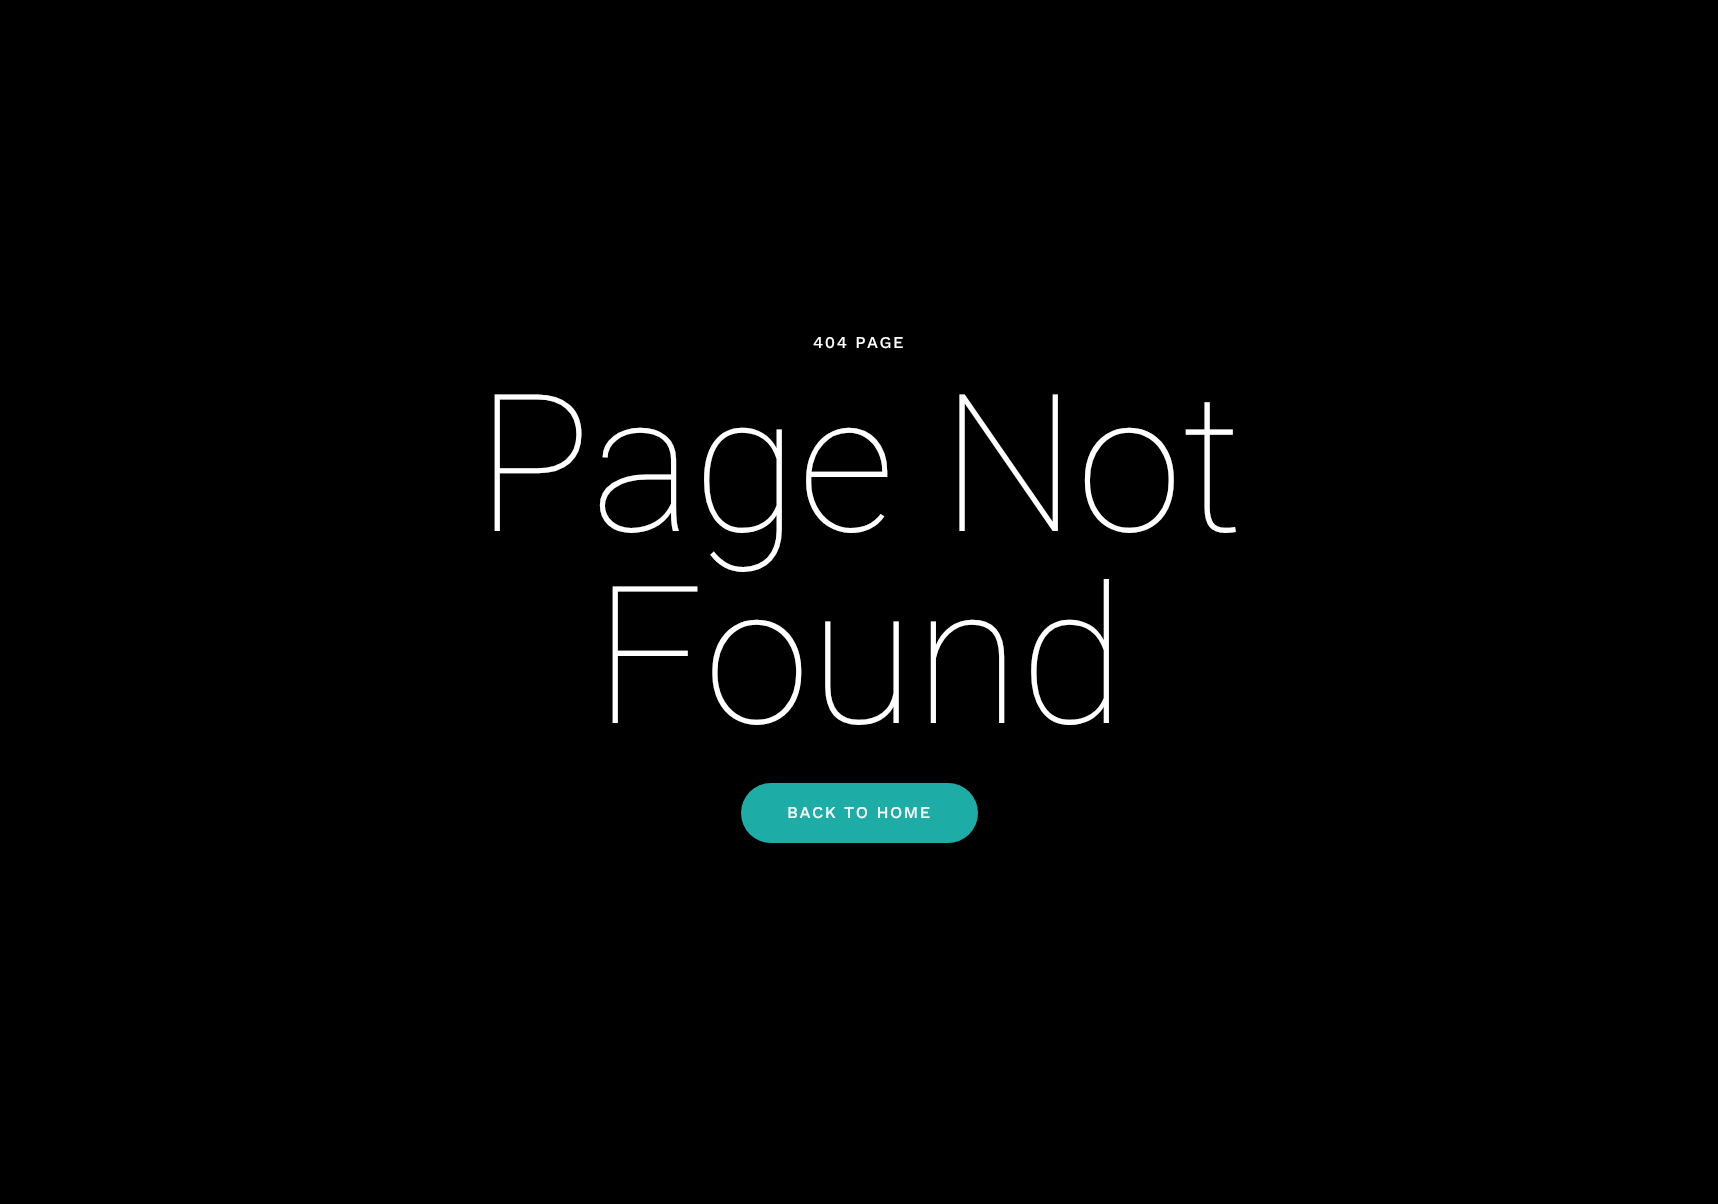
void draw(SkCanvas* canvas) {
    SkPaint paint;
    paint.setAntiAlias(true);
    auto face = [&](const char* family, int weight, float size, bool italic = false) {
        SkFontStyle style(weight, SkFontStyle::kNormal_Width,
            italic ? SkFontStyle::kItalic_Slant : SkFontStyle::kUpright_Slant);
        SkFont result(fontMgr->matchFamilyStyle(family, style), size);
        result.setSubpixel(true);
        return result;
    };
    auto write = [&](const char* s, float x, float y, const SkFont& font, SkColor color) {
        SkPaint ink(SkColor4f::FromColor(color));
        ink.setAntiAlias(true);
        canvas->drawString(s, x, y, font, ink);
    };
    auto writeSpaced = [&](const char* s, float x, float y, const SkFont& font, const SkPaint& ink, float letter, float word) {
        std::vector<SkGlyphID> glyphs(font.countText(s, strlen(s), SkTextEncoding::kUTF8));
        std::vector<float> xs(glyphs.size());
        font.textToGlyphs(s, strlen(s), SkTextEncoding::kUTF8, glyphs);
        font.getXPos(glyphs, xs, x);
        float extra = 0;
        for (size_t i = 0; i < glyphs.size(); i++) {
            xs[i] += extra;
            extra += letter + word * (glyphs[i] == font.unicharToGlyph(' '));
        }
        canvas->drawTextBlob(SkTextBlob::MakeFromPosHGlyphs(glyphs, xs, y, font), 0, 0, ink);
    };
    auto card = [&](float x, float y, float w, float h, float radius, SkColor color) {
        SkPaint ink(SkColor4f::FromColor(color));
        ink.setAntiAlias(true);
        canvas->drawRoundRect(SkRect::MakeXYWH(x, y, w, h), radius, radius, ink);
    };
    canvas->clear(SK_ColorBLACK);
    auto kFont1 = face("Work Sans", 500, 16.5f);
    paint.setColor(SK_ColorWHITE);
    writeSpaced("404 PAGE", 813, 348, kFont1, paint, 1.5f, 0);
    auto kFont2 = face("Roboto", 100, 192);
    write("Page Not", 476, 531, kFont2, SK_ColorWHITE);
    write("Found", 594, 723, kFont2, SK_ColorWHITE);
    card(741, 783, 237, 60, 30, SkColorSetRGB(30, 173, 166));
    writeSpaced("BACK TO HOME", 787, 818, kFont1, paint, 1.5f, 0);
}
